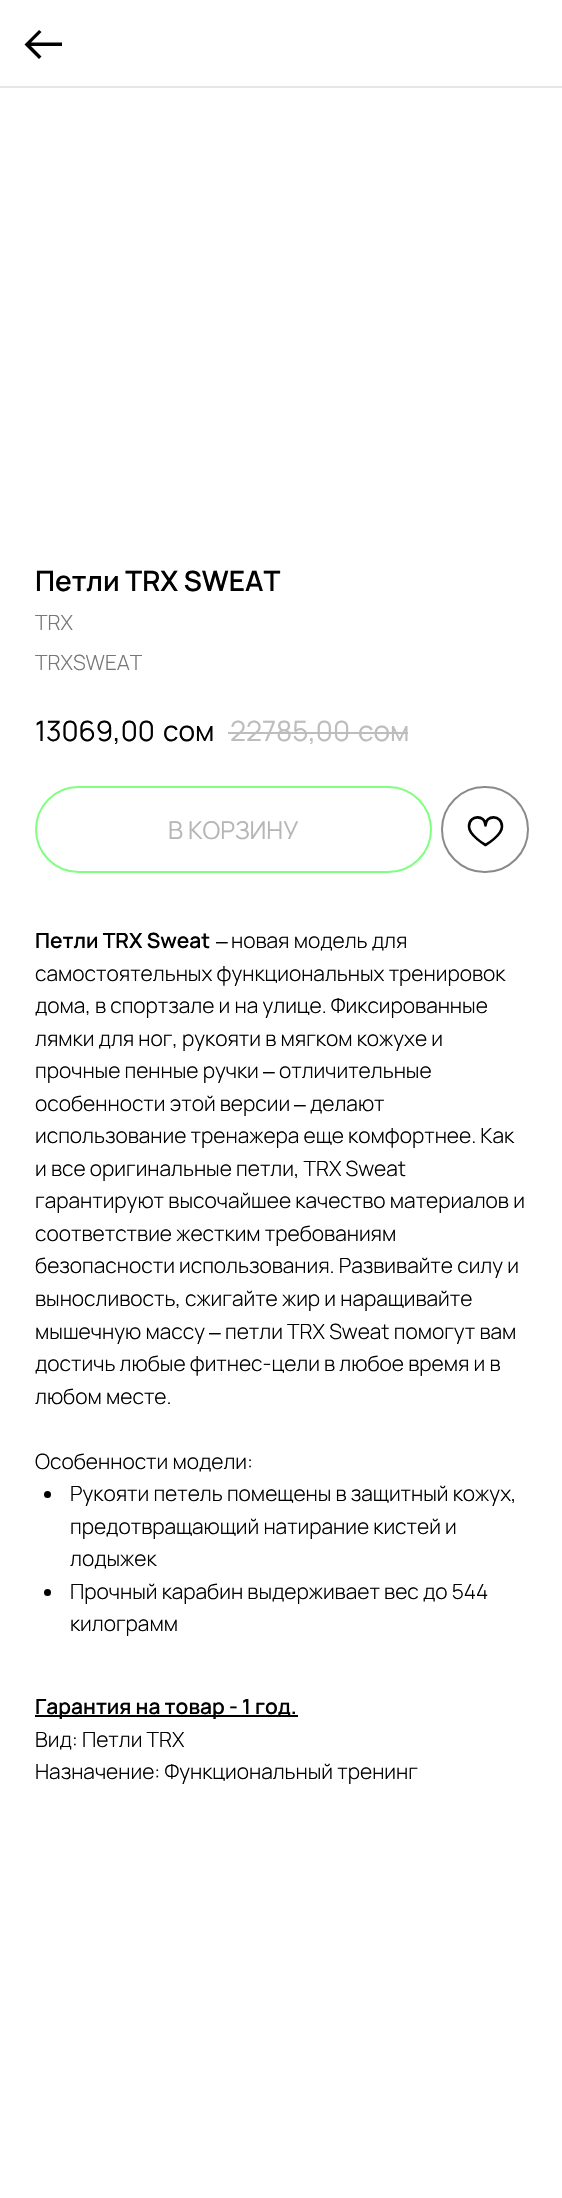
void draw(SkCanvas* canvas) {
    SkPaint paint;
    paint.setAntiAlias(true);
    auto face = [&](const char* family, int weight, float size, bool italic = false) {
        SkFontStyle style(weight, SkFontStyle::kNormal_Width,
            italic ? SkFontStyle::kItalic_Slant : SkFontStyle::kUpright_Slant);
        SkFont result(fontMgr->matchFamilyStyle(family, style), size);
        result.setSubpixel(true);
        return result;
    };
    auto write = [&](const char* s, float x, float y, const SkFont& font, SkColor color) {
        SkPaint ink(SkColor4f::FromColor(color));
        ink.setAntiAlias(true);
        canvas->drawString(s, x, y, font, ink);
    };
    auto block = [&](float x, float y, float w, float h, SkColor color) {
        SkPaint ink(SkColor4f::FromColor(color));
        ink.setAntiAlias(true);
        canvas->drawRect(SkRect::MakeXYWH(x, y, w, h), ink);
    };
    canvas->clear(SK_ColorWHITE);
    block(0, 86, 562, 2, SkColorSetRGB(230, 230, 230));
    paint.setColor(SK_ColorBLACK);
    canvas->drawPath(SkPathBuilder().moveTo(39, 30).lineTo(41.5f, 32).lineTo(31, 42.5f).lineTo(62, 42.5f).lineTo(62, 46).lineTo(31, 46).lineTo(41.5f, 56.5f).lineTo(39, 59).lineTo(24.5f, 44.5f).close().detach(), paint);
    auto kFont1 = face("Manrope", 600, 28);
    write("Петли TRX SWEAT", 35, 591, kFont1, SK_ColorBLACK);
    auto kFont2 = face("Manrope", 300, 21);
    write("TRX", 35, 630, kFont2, SkColorSetRGB(119, 119, 119));
    write("TRXSWEAT", 35, 670, kFont2, SkColorSetRGB(119, 119, 119));
    auto kFont3 = face("Manrope", 400, 28);
    write("13069,00", 35, 741, kFont3, SK_ColorBLACK);
    write("сом", 163, 741, kFont3, SK_ColorBLACK);
    write("22785,00", 230, 741, kFont3, SkColorSetRGB(189, 189, 189));
    write("сом", 358, 741, kFont3, SkColorSetRGB(189, 189, 189));
    block(228, 732, 180, 2, SkColorSetRGB(189, 189, 189));
    paint.setStyle(SkPaint::kStroke_Style);
    paint.setStrokeWidth(2);
    paint.setColor(SkColorSetRGB(128, 255, 128));
    canvas->drawRoundRect(SkRect::MakeXYWH(36, 787, 395, 85), 42.5f, 42.5f, paint);
    auto kFont4 = face("Manrope", 400, 24.5f);
    write("В КОРЗИНУ", 168, 839, kFont4, SkColorSetRGB(182, 182, 182));
    paint.setColor(SkColorSetRGB(136, 139, 141));
    canvas->drawRoundRect(SkRect::MakeXYWH(442, 787, 86, 85), 42.5f, 42.5f, paint);
    paint.setStrokeWidth(2.6f);
    paint.setStrokeJoin(SkPaint::kRound_Join);
    paint.setColor(SK_ColorBLACK);
    canvas->drawPath(SkPathBuilder().moveTo(502, 826.5f).cubicTo(502, 835.5f, 485.5f, 845, 485.5f, 845).cubicTo(485.5f, 845, 469, 835.5f, 469, 826.5f).cubicTo(469, 814.5f, 485.5f, 814.5f, 485.5f, 825.5f).cubicTo(485.5f, 814.5f, 502, 814.5f, 502, 826.5f).close().detach(), paint);
    auto kFont5 = face("Manrope", 600, 21);
    write("Петли TRX Sweat", 35, 948, kFont5, SK_ColorBLACK);
    auto kFont6 = face("Liberation Sans", 400, 21);
    write("–", 216, 948, kFont6, SK_ColorBLACK);
    write("новая модель для", 231, 948, kFont2, SK_ColorBLACK);
    write("самостоятельных функциональных тренировок", 35, 981, kFont2, SK_ColorBLACK);
    write("дома, в спортзале и на улице. Фиксированные", 35, 1013, kFont2, SK_ColorBLACK);
    write("лямки для ног, рукояти в мягком кожухе и", 35, 1046, kFont2, SK_ColorBLACK);
    write("прочные пенные ручки", 35, 1078, kFont2, SK_ColorBLACK);
    write("–", 263, 1078, kFont6, SK_ColorBLACK);
    write("отличительные", 279, 1078, kFont2, SK_ColorBLACK);
    write("особенности этой версии", 35, 1111, kFont2, SK_ColorBLACK);
    write("–", 294, 1111, kFont6, SK_ColorBLACK);
    write("делают", 310, 1111, kFont2, SK_ColorBLACK);
    write("использование тренажера еще комфортнее. Как", 35, 1143, kFont2, SK_ColorBLACK);
    write("и все оригинальные петли, TRX Sweat", 35, 1176, kFont2, SK_ColorBLACK);
    write("гарантируют высочайшее качество материалов и", 35, 1208, kFont2, SK_ColorBLACK);
    write("соответствие жестким требованиям", 35, 1241, kFont2, SK_ColorBLACK);
    write("безопасности использования. Развивайте силу и", 35, 1273, kFont2, SK_ColorBLACK);
    write("выносливость, сжигайте жир и наращивайте", 35, 1306, kFont2, SK_ColorBLACK);
    write("мышечную массу", 35, 1339, kFont2, SK_ColorBLACK);
    write("–", 209, 1339, kFont6, SK_ColorBLACK);
    write("петли TRX Sweat помогут вам", 225, 1339, kFont2, SK_ColorBLACK);
    write("достичь любые фитнес-цели в любое время и в", 35, 1371, kFont2, SK_ColorBLACK);
    write("любом месте.", 35, 1404, kFont2, SK_ColorBLACK);
    write("Особенности модели:", 35, 1469, kFont2, SK_ColorBLACK);
    paint.setStyle(SkPaint::kFill_Style);
    canvas->drawCircle(47.5f, 1494.5f, 3.5f, paint);
    write("Рукояти петель помещены в защитный кожух,", 70, 1501, kFont2, SK_ColorBLACK);
    write("предотвращающий натирание кистей и", 70, 1534, kFont2, SK_ColorBLACK);
    write("лодыжек", 70, 1566, kFont2, SK_ColorBLACK);
    canvas->drawCircle(47.5f, 1592.5f, 3.5f, paint);
    write("Прочный карабин выдерживает вес до 544", 70, 1599, kFont2, SK_ColorBLACK);
    write("килограмм", 70, 1631, kFont2, SK_ColorBLACK);
    block(35, 1715, 263, 2, SK_ColorBLACK);
    write("Гарантия на товар - 1 год.", 35, 1714, kFont5, SK_ColorBLACK);
    write("Вид: Петли TRX", 35, 1747, kFont2, SK_ColorBLACK);
    write("Назначение: Функциональный тренинг", 35, 1779, kFont2, SK_ColorBLACK);
}
